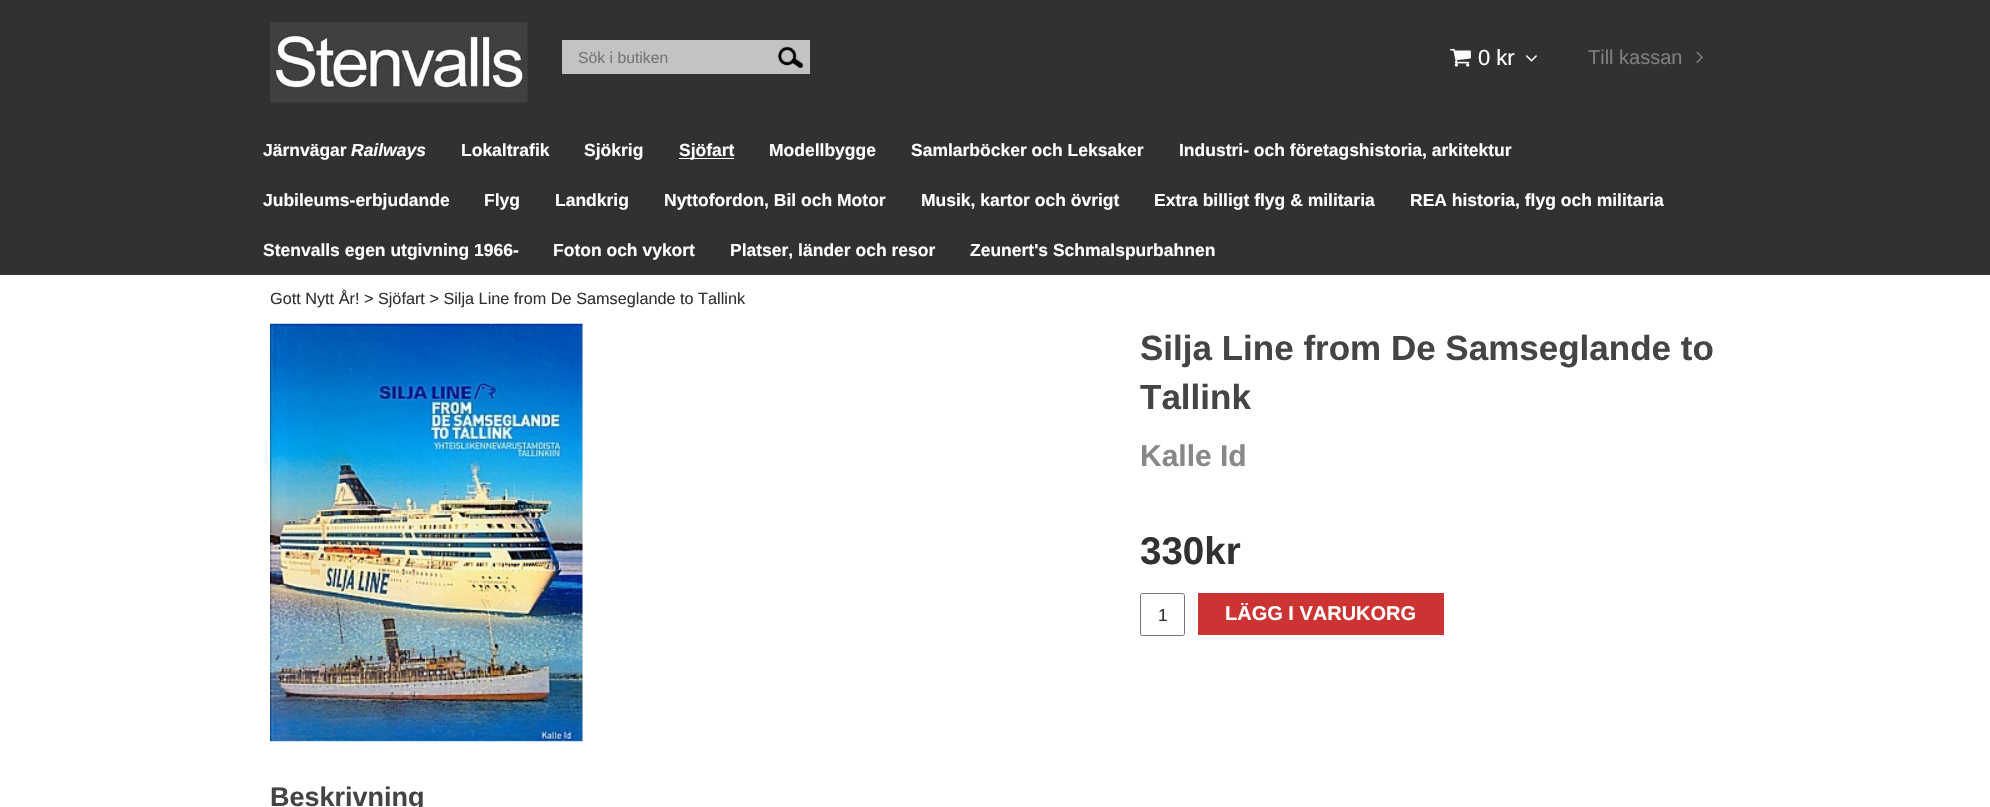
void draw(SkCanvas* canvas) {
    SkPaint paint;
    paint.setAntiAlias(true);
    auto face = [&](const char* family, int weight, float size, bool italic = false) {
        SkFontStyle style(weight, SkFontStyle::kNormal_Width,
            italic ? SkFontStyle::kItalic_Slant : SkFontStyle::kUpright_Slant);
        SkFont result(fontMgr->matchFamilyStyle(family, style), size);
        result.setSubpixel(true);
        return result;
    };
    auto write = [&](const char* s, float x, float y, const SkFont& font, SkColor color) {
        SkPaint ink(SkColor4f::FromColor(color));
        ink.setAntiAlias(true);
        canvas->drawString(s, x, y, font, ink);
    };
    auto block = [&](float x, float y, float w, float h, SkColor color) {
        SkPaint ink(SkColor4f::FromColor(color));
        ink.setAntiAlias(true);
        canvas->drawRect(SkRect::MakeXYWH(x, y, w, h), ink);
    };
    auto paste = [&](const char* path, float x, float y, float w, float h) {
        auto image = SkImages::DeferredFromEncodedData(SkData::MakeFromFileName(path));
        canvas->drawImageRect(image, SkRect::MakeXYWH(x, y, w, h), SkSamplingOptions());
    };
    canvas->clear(SK_ColorWHITE);
    block(0, 0, 1990, 275, SkColorSetRGB(49, 49, 49));
    paste("pic1.png", 270, 22, 258, 81);
    block(562, 40, 248, 34, SkColorSetRGB(195, 195, 195));
    auto kFont1 = face("Liberation Sans", 400, 15.75f);
    write("Sök i butiken", 578, 63, kFont1, SkColorSetRGB(117, 117, 117));
    paste("pic2.png", 777, 46, 27, 23);
    paste("pic3.png", 1450, 48, 21, 19);
    auto kFont2 = face("Liberation Sans", 400, 22);
    write("0 kr", 1478, 65, kFont2, SK_ColorWHITE);
    paste("pic4.png", 1525, 55, 12, 7);
    auto kFont3 = face("Liberation Sans", 400, 20);
    write("Till kassan", 1588, 64, kFont3, SkColorSetRGB(127, 127, 127));
    paste("pic5.png", 1696, 51, 7, 12);
    auto kFont4 = face("Liberation Sans", 700, 17.5f);
    write("Järnvägar", 263, 156, kFont4, SK_ColorWHITE);
    auto kFont5 = face("Liberation Sans", 700, 17.5f, true);
    write("Railways", 351, 156, kFont5, SK_ColorWHITE);
    write("Lokaltrafik", 461, 156, kFont4, SK_ColorWHITE);
    write("Sjökrig", 584, 156, kFont4, SK_ColorWHITE);
    block(679, 158, 55, 1, SK_ColorWHITE);
    write("Sjöfart", 679, 156, kFont4, SK_ColorWHITE);
    write("Modellbygge", 769, 156, kFont4, SK_ColorWHITE);
    write("Samlarböcker och Leksaker", 911, 156, kFont4, SK_ColorWHITE);
    write("Industri- och företagshistoria, arkitektur", 1179, 156, kFont4, SK_ColorWHITE);
    write("Jubileums-erbjudande", 263, 206, kFont4, SK_ColorWHITE);
    write("Flyg", 484, 206, kFont4, SK_ColorWHITE);
    write("Landkrig", 555, 206, kFont4, SK_ColorWHITE);
    write("Nyttofordon, Bil och Motor", 664, 206, kFont4, SK_ColorWHITE);
    write("Musik, kartor och övrigt", 921, 206, kFont4, SK_ColorWHITE);
    write("Extra billigt flyg & militaria", 1154, 206, kFont4, SK_ColorWHITE);
    write("REA historia, flyg och militaria", 1410, 206, kFont4, SK_ColorWHITE);
    write("Stenvalls egen utgivning 1966-", 263, 256, kFont4, SK_ColorWHITE);
    write("Foton och vykort", 553, 256, kFont4, SK_ColorWHITE);
    write("Platser, länder och resor", 730, 256, kFont4, SK_ColorWHITE);
    write("Zeunert's Schmalspurbahnen", 970, 256, kFont4, SK_ColorWHITE);
    auto kFont6 = face("Liberation Sans", 400, 16.25f);
    write("Gott Nytt År! > Sjöfart > Silja Line from De Samseglande to Tallink", 270, 304, kFont6, SkColorSetRGB(49, 49, 49));
    paste("pic6.png", 270, 323, 313, 419);
    auto kFont7 = face("Liberation Sans", 700, 35);
    write("Silja Line from De Samseglande to", 1140, 360, kFont7, SkColorSetRGB(68, 68, 68));
    write("Tallink", 1140, 409, kFont7, SkColorSetRGB(68, 68, 68));
    auto kFont8 = face("Liberation Sans", 700, 30);
    write("Kalle Id", 1140, 466, kFont8, SkColorSetRGB(136, 136, 136));
    auto kFont9 = face("Liberation Sans", 700, 38.5f);
    write("330kr", 1140, 564, kFont9, SkColorSetRGB(49, 49, 49));
    paint.setStyle(SkPaint::kStroke_Style);
    paint.setStrokeWidth(1);
    paint.setColor(SkColorSetRGB(118, 118, 118));
    canvas->drawRoundRect(SkRect::MakeXYWH(1140.5f, 593.5f, 44, 42), 2, 2, paint);
    auto kFont10 = face("Liberation Sans", 400, 17.5f);
    write("1", 1158, 621, kFont10, SkColorSetRGB(49, 49, 49));
    block(1198, 593, 246, 42, SkColorSetRGB(204, 51, 51));
    auto kFont11 = face("Liberation Sans", 700, 20);
    write("LÄGG I VARUKORG", 1225, 620, kFont11, SK_ColorWHITE);
    auto kFont12 = face("Liberation Sans", 700, 27);
    write("Beskrivning", 270, 806, kFont12, SkColorSetRGB(68, 68, 68));
}
